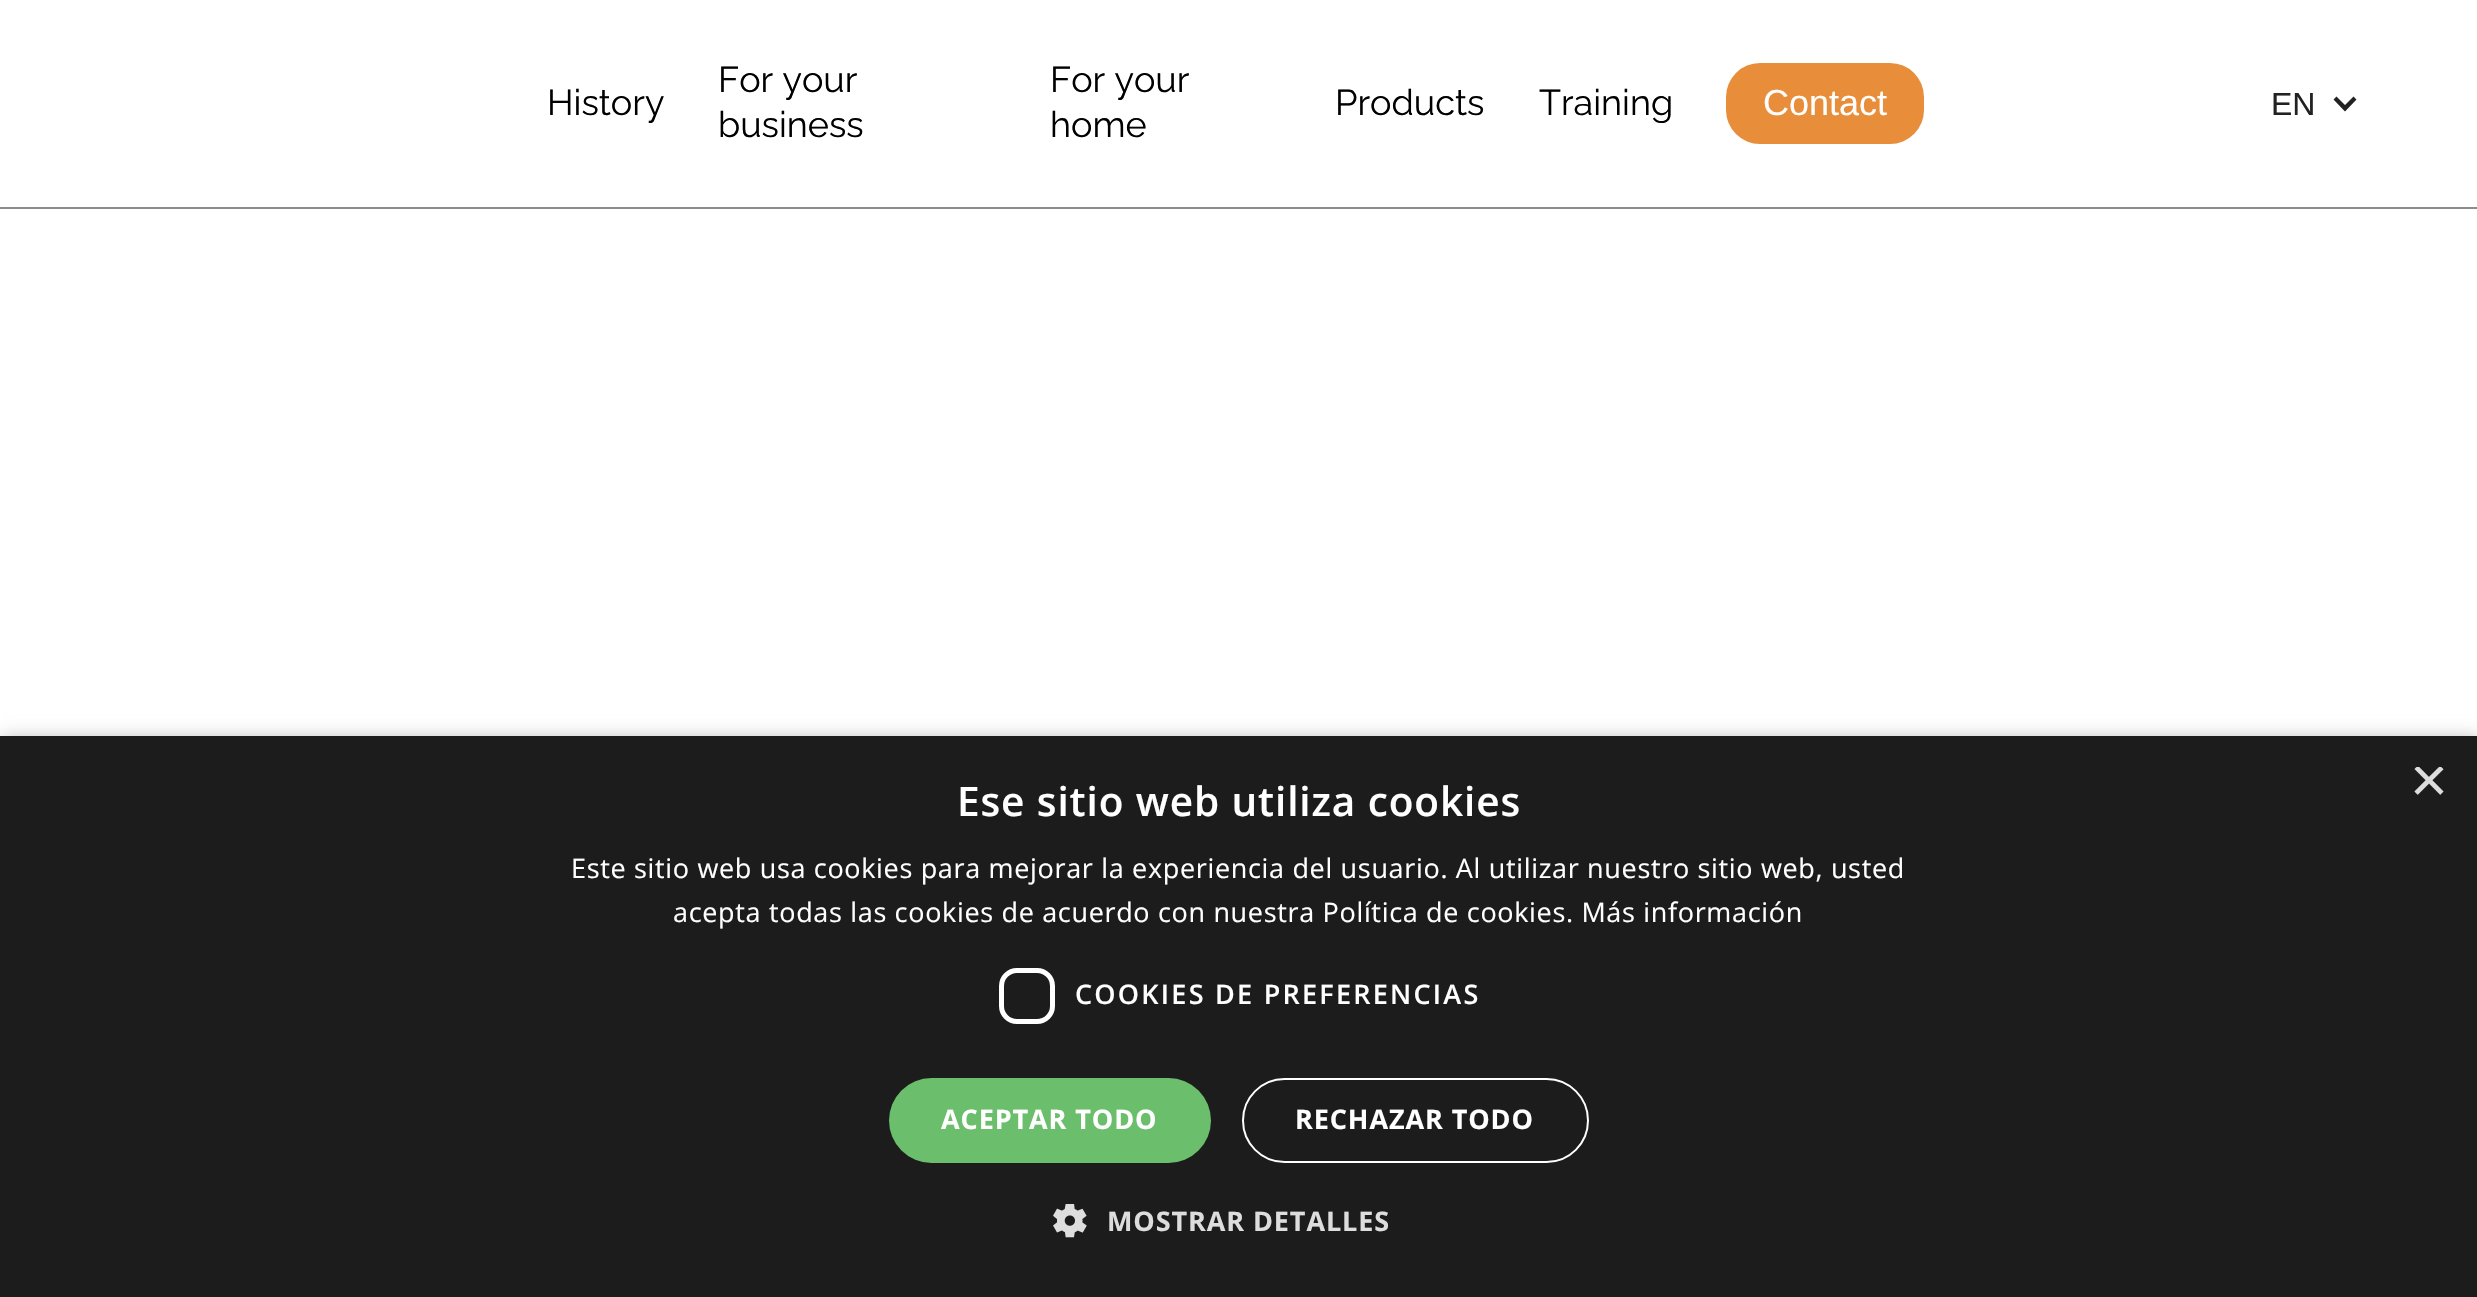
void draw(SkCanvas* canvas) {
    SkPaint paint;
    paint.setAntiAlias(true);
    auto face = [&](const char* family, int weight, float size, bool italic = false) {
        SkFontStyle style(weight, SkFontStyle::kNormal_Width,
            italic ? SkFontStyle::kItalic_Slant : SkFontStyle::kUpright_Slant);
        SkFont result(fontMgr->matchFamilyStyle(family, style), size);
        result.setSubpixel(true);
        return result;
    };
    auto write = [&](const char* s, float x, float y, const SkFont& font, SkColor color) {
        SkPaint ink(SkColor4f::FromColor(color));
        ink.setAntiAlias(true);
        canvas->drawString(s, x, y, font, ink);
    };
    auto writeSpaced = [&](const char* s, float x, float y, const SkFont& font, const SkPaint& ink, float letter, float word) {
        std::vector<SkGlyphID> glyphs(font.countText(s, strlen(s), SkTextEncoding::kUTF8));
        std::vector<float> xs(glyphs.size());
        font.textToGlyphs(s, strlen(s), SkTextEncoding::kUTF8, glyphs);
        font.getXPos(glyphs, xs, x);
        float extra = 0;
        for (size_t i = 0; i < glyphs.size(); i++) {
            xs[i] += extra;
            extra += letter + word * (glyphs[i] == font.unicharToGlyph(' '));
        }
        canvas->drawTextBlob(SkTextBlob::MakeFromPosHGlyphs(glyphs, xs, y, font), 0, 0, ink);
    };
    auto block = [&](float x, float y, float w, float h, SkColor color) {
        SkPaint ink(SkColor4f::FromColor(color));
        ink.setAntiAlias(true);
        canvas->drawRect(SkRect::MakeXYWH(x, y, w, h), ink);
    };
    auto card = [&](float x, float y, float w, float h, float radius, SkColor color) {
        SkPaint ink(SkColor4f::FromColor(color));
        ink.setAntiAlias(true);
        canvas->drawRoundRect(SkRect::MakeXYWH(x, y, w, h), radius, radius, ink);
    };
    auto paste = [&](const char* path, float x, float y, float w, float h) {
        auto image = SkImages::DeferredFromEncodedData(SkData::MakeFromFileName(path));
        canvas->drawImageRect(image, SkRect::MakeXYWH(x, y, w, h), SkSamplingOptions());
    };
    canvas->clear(SK_ColorWHITE);
    block(0, 207, 2477, 2, SkColorSetRGB(140, 140, 140));
    auto kFont1 = face("Raleway", 100, 36);
    write("History", 547, 115, kFont1, SK_ColorBLACK);
    write("For your", 718, 92, kFont1, SK_ColorBLACK);
    write("business", 718, 137, kFont1, SK_ColorBLACK);
    write("For your", 1050, 92, kFont1, SK_ColorBLACK);
    write("home", 1050, 137, kFont1, SK_ColorBLACK);
    write("Products", 1335, 115, kFont1, SK_ColorBLACK);
    write("Training", 1539, 115, kFont1, SK_ColorBLACK);
    card(1726, 63, 198, 81, 34, SkColorSetRGB(232, 141, 58));
    auto kFont2 = face("Liberation Sans", 400, 36);
    write("Contact", 1763, 115, kFont2, SK_ColorWHITE);
    auto kFont3 = face("Liberation Sans", 400, 32);
    write("EN", 2271, 115, kFont3, SkColorSetRGB(34, 34, 34));
    paint.setColor(SkColorSetRGB(34, 34, 34));
    canvas->drawPath(SkPathBuilder().moveTo(2353.5f, 96.5f).lineTo(2345, 105).lineTo(2336.5f, 96.5f).lineTo(2333.5f, 99.5f).lineTo(2345, 111.5f).lineTo(2356.5f, 99.5f).close().detach(), paint);
    paint.setColor(SkColorSetARGB(89, 0, 0, 0));
    paint.setMaskFilter(SkMaskFilter::MakeBlur(kNormal_SkBlurStyle, 9));
    canvas->drawRect(SkRect::MakeXYWH(2, 740, 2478, 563), paint);
    paint.setMaskFilter(nullptr);
    block(0, 736, 2477, 561, SkColorSetRGB(28, 28, 28));
    canvas->save();
    canvas->clipRect(SkRect::MakeXYWH(2410, 767, 34, 34));
    auto kFont4 = face("Liberation Sans", 400, 65);
    write("×", 2410, 802, kFont4, SkColorSetRGB(221, 221, 221));
    canvas->restore();
    auto kFont5 = face("Open Sans", 600, 40.5f);
    paint.setColor(SK_ColorWHITE);
    writeSpaced("Ese sitio web utiliza cookies", 957, 816, kFont5, paint, 0.9f, 0);
    auto kFont6 = face("Open Sans", 400, 27);
    writeSpaced("Este sitio web usa cookies para mejorar la experiencia del usuario. Al utilizar nuestro sitio web, usted", 571, 878, kFont6, paint, 0.67f, 0);
    writeSpaced("acepta todas las cookies de acuerdo con nuestra Política de cookies. Más información", 673, 922, kFont6, paint, 0.67f, 0);
    paint.setStyle(SkPaint::kStroke_Style);
    paint.setStrokeWidth(5);
    canvas->drawRoundRect(SkRect::MakeXYWH(1001.5f, 970.5f, 51, 51), 15.5f, 15.5f, paint);
    auto kFont7 = face("Open Sans", 600, 27);
    paint.setStyle(SkPaint::kFill_Style);
    writeSpaced("COOKIES DE PREFERENCIAS", 1075, 1004, kFont7, paint, 2.25f, 0);
    card(889, 1078, 322, 85, 42.5f, SkColorSetRGB(107, 190, 107));
    auto kFont8 = face("Open Sans", 700, 27);
    writeSpaced("ACEPTAR TODO", 941, 1129, kFont8, paint, 0.9f, 0);
    paint.setStyle(SkPaint::kStroke_Style);
    paint.setStrokeWidth(2);
    canvas->drawRoundRect(SkRect::MakeXYWH(1243, 1079, 345, 83), 41.5f, 41.5f, paint);
    paint.setStyle(SkPaint::kFill_Style);
    writeSpaced("RECHAZAR TODO", 1295, 1129, kFont8, paint, 0.9f, 0);
    paste("pic1.png", 1053, 1204, 34, 34);
    paint.setColor(SkColorSetRGB(221, 221, 221));
    writeSpaced("MOSTRAR DETALLES", 1107, 1231, kFont8, paint, 0.9f, 0);
}
